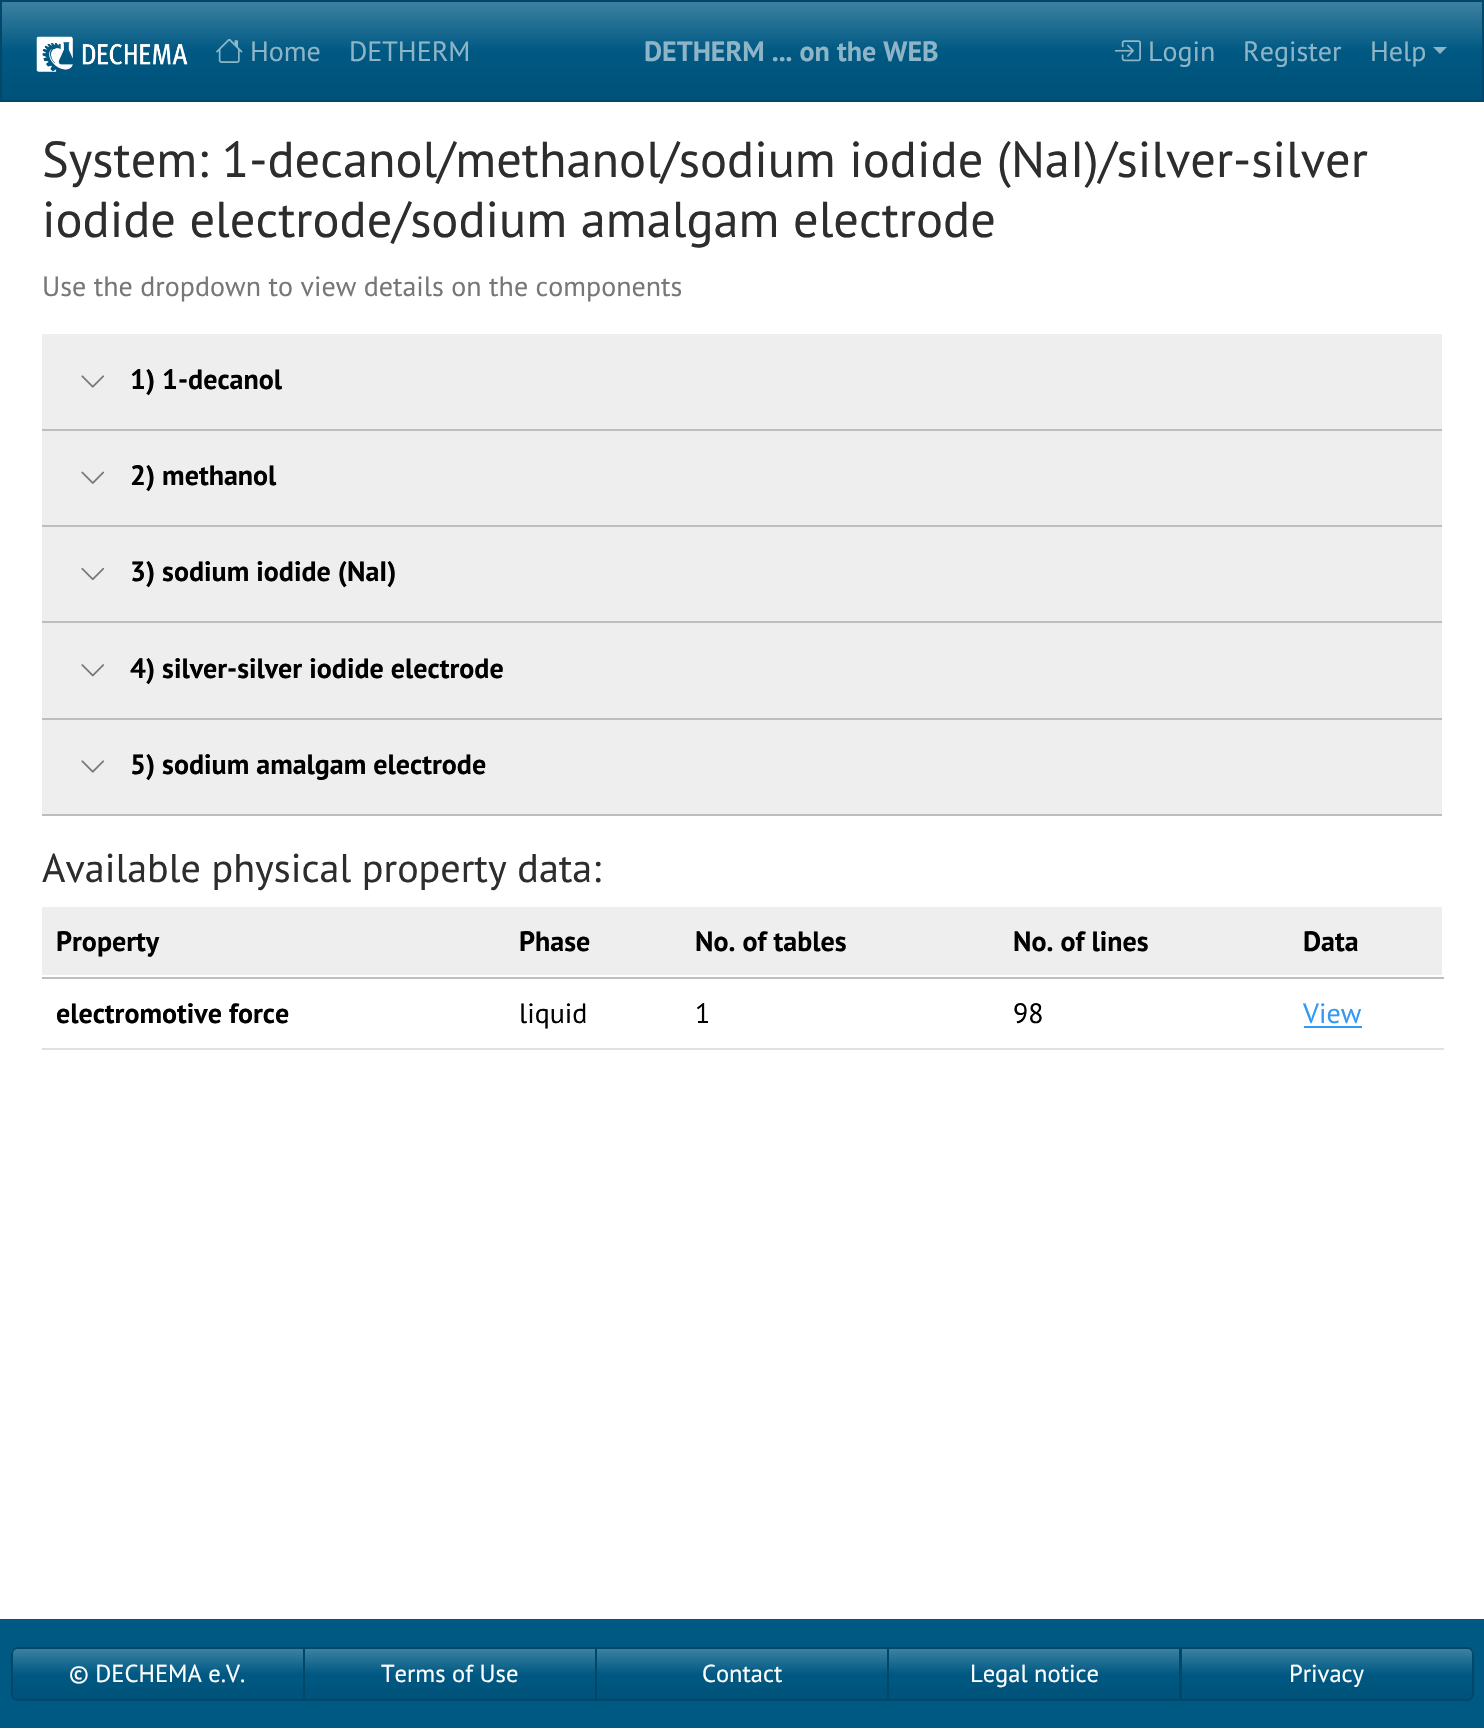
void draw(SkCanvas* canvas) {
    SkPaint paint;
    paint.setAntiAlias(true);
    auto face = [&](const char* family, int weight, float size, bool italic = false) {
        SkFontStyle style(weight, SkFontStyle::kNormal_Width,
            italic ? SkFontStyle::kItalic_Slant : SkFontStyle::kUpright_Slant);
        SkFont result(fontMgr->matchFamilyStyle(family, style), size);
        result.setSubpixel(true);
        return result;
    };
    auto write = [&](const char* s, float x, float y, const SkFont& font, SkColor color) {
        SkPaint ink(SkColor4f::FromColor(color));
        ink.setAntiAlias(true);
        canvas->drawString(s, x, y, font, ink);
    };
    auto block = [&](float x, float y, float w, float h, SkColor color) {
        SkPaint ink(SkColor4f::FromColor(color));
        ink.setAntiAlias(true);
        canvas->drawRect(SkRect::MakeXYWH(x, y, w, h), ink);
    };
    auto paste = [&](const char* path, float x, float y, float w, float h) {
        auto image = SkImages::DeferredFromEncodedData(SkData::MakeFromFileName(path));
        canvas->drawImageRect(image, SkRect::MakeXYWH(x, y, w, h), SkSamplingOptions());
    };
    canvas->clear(SK_ColorWHITE);
    {
        const SkColor colors[] = {SkColorSetRGB(61, 129, 161), SkColorSetRGB(0, 89, 131), SkColorSetRGB(0, 82, 121)};
        const float stops[] = {0, 0.5f, 1};
        const SkPoint ends[] = {{742, 1.7f}, {742, 100}};
        paint.setShader(SkGradientShader::MakeLinear(ends, colors, stops, 3, SkTileMode::kClamp));
        paint.setAlpha(255);
    }
    canvas->drawRect(SkRect::MakeXYWH(2, 2, 1480, 98), paint);
    paint.setStyle(SkPaint::kStroke_Style);
    paint.setStrokeWidth(2);
    paint.setShader(nullptr);
    paint.setColor(SkColorSetRGB(0, 71, 105));
    canvas->drawRect(SkRect::MakeXYWH(1, 1, 1482, 100), paint);
    paste("pic1.png", 36, 36, 152, 36);
    paste("pic2.png", 216, 38, 27, 25);
    auto kFont1 = face("PT Sans", 400, 28);
    write("Home", 250, 61, kFont1, SkColorSetRGB(141, 181, 199));
    write("DETHERM", 349, 61, kFont1, SkColorSetRGB(141, 181, 199));
    auto kFont2 = face("PT Sans", 700, 28);
    write("DETHERM ... on the WEB", 644, 61, kFont2, SkColorSetRGB(141, 181, 199));
    paste("pic3.png", 1114, 40, 27, 22);
    write("Login", 1148, 61, kFont1, SkColorSetRGB(141, 181, 199));
    write("Register", 1243, 61, kFont1, SkColorSetRGB(141, 181, 199));
    write("Help", 1370, 61, kFont1, SkColorSetRGB(141, 181, 199));
    paint.setStyle(SkPaint::kFill_Style);
    paint.setColor(SkColorSetARGB(140, 255, 255, 255));
    canvas->drawPath(SkPathBuilder().moveTo(1433, 47).lineTo(1447, 47).lineTo(1440, 54).close().detach(), paint);
    auto kFont3 = face("PT Sans", 400, 50.45f);
    write("System: 1-decanol/methanol/sodium iodide (NaI)/silver-silver", 42, 177, kFont3, SkColorSetRGB(45, 45, 45));
    write("iodide electrode/sodium amalgam electrode", 42, 237, kFont3, SkColorSetRGB(45, 45, 45));
    write("Use the dropdown to view details on the components", 42, 296, kFont1, SkColorSetRGB(119, 119, 119));
    block(42, 334, 1400, 95, SkColorSetRGB(238, 238, 238));
    block(42, 429, 1400, 2, SkColorSetRGB(190, 190, 190));
    paste("pic4.png", 81, 375, 24, 13);
    write("1) 1-decanol", 130, 389, kFont2, SK_ColorBLACK);
    block(42, 431, 1400, 94, SkColorSetRGB(238, 238, 238));
    block(42, 525, 1400, 2, SkColorSetRGB(190, 190, 190));
    paste("pic5.png", 81, 471, 24, 13);
    write("2) methanol", 130, 485, kFont2, SK_ColorBLACK);
    block(42, 527, 1400, 94, SkColorSetRGB(238, 238, 238));
    block(42, 621, 1400, 2, SkColorSetRGB(190, 190, 190));
    paste("pic6.png", 81, 567, 24, 14);
    write("3) sodium iodide (NaI)", 130, 581, kFont2, SK_ColorBLACK);
    block(42, 623, 1400, 95, SkColorSetRGB(238, 238, 238));
    block(42, 718, 1400, 2, SkColorSetRGB(190, 190, 190));
    paste("pic7.png", 81, 664, 24, 13);
    write("4) silver-silver iodide electrode", 130, 678, kFont2, SK_ColorBLACK);
    block(42, 720, 1400, 94, SkColorSetRGB(238, 238, 238));
    block(42, 814, 1400, 2, SkColorSetRGB(190, 190, 190));
    paste("pic4.png", 81, 760, 24, 13);
    write("5) sodium amalgam electrode", 130, 774, kFont2, SK_ColorBLACK);
    auto kFont4 = face("PT Sans", 400, 40.1f);
    write("Available physical property data:", 42, 882, kFont4, SkColorSetRGB(45, 45, 45));
    block(42, 907, 1400, 68, SkColorSetRGB(238, 238, 238));
    write("Property", 56, 951, kFont2, SK_ColorBLACK);
    write("Phase", 519, 951, kFont2, SK_ColorBLACK);
    write("No. of tables", 695, 951, kFont2, SK_ColorBLACK);
    write("No. of lines", 1013, 951, kFont2, SK_ColorBLACK);
    block(42, 977, 1402, 2, SkColorSetRGB(190, 190, 190));
    write("Data", 1303, 951, kFont2, SK_ColorBLACK);
    write("electromotive force", 56, 1023, kFont2, SK_ColorBLACK);
    write("liquid", 519, 1023, kFont1, SK_ColorBLACK);
    write("1", 695, 1023, kFont1, SK_ColorBLACK);
    write("98", 1013, 1023, kFont1, SK_ColorBLACK);
    block(42, 1048, 1402, 2, SkColorSetRGB(222, 226, 230));
    write("View", 1303, 1023, kFont1, SkColorSetRGB(51, 153, 243));
    block(1304, 1026, 58, 2, SkColorSetRGB(51, 153, 243));
    block(0, 1619, 1484, 109, SkColorSetRGB(0, 89, 131));
    canvas->save();
    canvas->clipPath(SkPathBuilder().moveTo(18, 1647).lineTo(305, 1647).lineTo(305, 1701).lineTo(18, 1701).cubicTo(14, 1701, 11, 1698, 11, 1694).lineTo(11, 1654).cubicTo(11, 1650, 14, 1647, 18, 1647).close().detach(), true);
    {
        const SkColor colors[] = {SkColorSetRGB(61, 129, 161), SkColorSetRGB(0, 89, 131), SkColorSetRGB(0, 82, 121)};
        const float stops[] = {0, 0.5f, 1};
        const SkPoint ends[] = {{158, 1649}, {158, 1699}};
        paint.setShader(SkGradientShader::MakeLinear(ends, colors, stops, 3, SkTileMode::kClamp));
        paint.setAlpha(255);
    }
    canvas->drawRect(SkRect::MakeXYWH(11, 1649, 292, 50), paint);
    canvas->restore();
    paint.setStyle(SkPaint::kStroke_Style);
    paint.setShader(nullptr);
    paint.setColor(SkColorSetRGB(0, 71, 105));
    canvas->drawPath(SkPathBuilder().moveTo(18, 1648).lineTo(304, 1648).lineTo(304, 1700).lineTo(18, 1700).cubicTo(14.5f, 1700, 12, 1697.5f, 12, 1694).lineTo(12, 1654).cubicTo(12, 1650.5f, 14.5f, 1648, 18, 1648).close().detach(), paint);
    auto kFont5 = face("PT Sans", 400, 24.5f);
    write("© DECHEMA e.V.", 69, 1682, kFont5, SK_ColorWHITE);
    paint.setStyle(SkPaint::kFill_Style);
    {
        const SkColor colors[] = {SkColorSetRGB(61, 129, 161), SkColorSetRGB(0, 89, 131), SkColorSetRGB(0, 82, 121)};
        const float stops[] = {0, 0.5f, 1};
        const SkPoint ends[] = {{450, 1649}, {450, 1699}};
        paint.setShader(SkGradientShader::MakeLinear(ends, colors, stops, 3, SkTileMode::kClamp));
        paint.setAlpha(255);
    }
    canvas->drawRect(SkRect::MakeXYWH(305, 1649, 290, 50), paint);
    paint.setStyle(SkPaint::kStroke_Style);
    paint.setShader(nullptr);
    paint.setColor(SkColorSetRGB(0, 71, 105));
    canvas->drawRect(SkRect::MakeXYWH(304, 1648, 292, 52), paint);
    write("Terms of Use", 381, 1682, kFont5, SK_ColorWHITE);
    paint.setStyle(SkPaint::kFill_Style);
    {
        const SkColor colors[] = {SkColorSetRGB(61, 129, 161), SkColorSetRGB(0, 89, 131), SkColorSetRGB(0, 82, 121)};
        const float stops[] = {0, 0.5f, 1};
        const SkPoint ends[] = {{742, 1649}, {742, 1699}};
        paint.setShader(SkGradientShader::MakeLinear(ends, colors, stops, 3, SkTileMode::kClamp));
        paint.setAlpha(255);
    }
    canvas->drawRect(SkRect::MakeXYWH(597, 1649, 290, 50), paint);
    paint.setStyle(SkPaint::kStroke_Style);
    paint.setShader(nullptr);
    paint.setColor(SkColorSetRGB(0, 71, 105));
    canvas->drawRect(SkRect::MakeXYWH(596, 1648, 292, 52), paint);
    write("Contact", 702, 1682, kFont5, SK_ColorWHITE);
    paint.setStyle(SkPaint::kFill_Style);
    {
        const SkColor colors[] = {SkColorSetRGB(61, 129, 161), SkColorSetRGB(0, 89, 131), SkColorSetRGB(0, 82, 121)};
        const float stops[] = {0, 0.5f, 1};
        const SkPoint ends[] = {{1034, 1649}, {1034, 1699}};
        paint.setShader(SkGradientShader::MakeLinear(ends, colors, stops, 3, SkTileMode::kClamp));
        paint.setAlpha(255);
    }
    canvas->drawRect(SkRect::MakeXYWH(889, 1649, 290, 50), paint);
    paint.setStyle(SkPaint::kStroke_Style);
    paint.setShader(nullptr);
    paint.setColor(SkColorSetRGB(0, 71, 105));
    canvas->drawRect(SkRect::MakeXYWH(888, 1648, 292, 52), paint);
    write("Legal notice", 970, 1682, kFont5, SK_ColorWHITE);
    canvas->save();
    canvas->clipPath(SkPathBuilder().moveTo(1180, 1647).lineTo(1467, 1647).cubicTo(1471, 1647, 1474, 1650, 1474, 1654).lineTo(1474, 1694).cubicTo(1474, 1698, 1471, 1701, 1467, 1701).lineTo(1180, 1701).close().detach(), true);
    paint.setStyle(SkPaint::kFill_Style);
    {
        const SkColor colors[] = {SkColorSetRGB(61, 129, 161), SkColorSetRGB(0, 89, 131), SkColorSetRGB(0, 82, 121)};
        const float stops[] = {0, 0.5f, 1};
        const SkPoint ends[] = {{1327, 1649}, {1327, 1699}};
        paint.setShader(SkGradientShader::MakeLinear(ends, colors, stops, 3, SkTileMode::kClamp));
        paint.setAlpha(255);
    }
    canvas->drawRect(SkRect::MakeXYWH(1182, 1649, 292, 50), paint);
    canvas->restore();
    paint.setStyle(SkPaint::kStroke_Style);
    paint.setShader(nullptr);
    paint.setColor(SkColorSetRGB(0, 71, 105));
    canvas->drawPath(SkPathBuilder().moveTo(1181, 1648).lineTo(1467, 1648).cubicTo(1470.5f, 1648, 1473, 1650.5f, 1473, 1654).lineTo(1473, 1694).cubicTo(1473, 1697.5f, 1470.5f, 1700, 1467, 1700).lineTo(1181, 1700).close().detach(), paint);
    write("Privacy", 1289, 1682, kFont5, SK_ColorWHITE);
}
